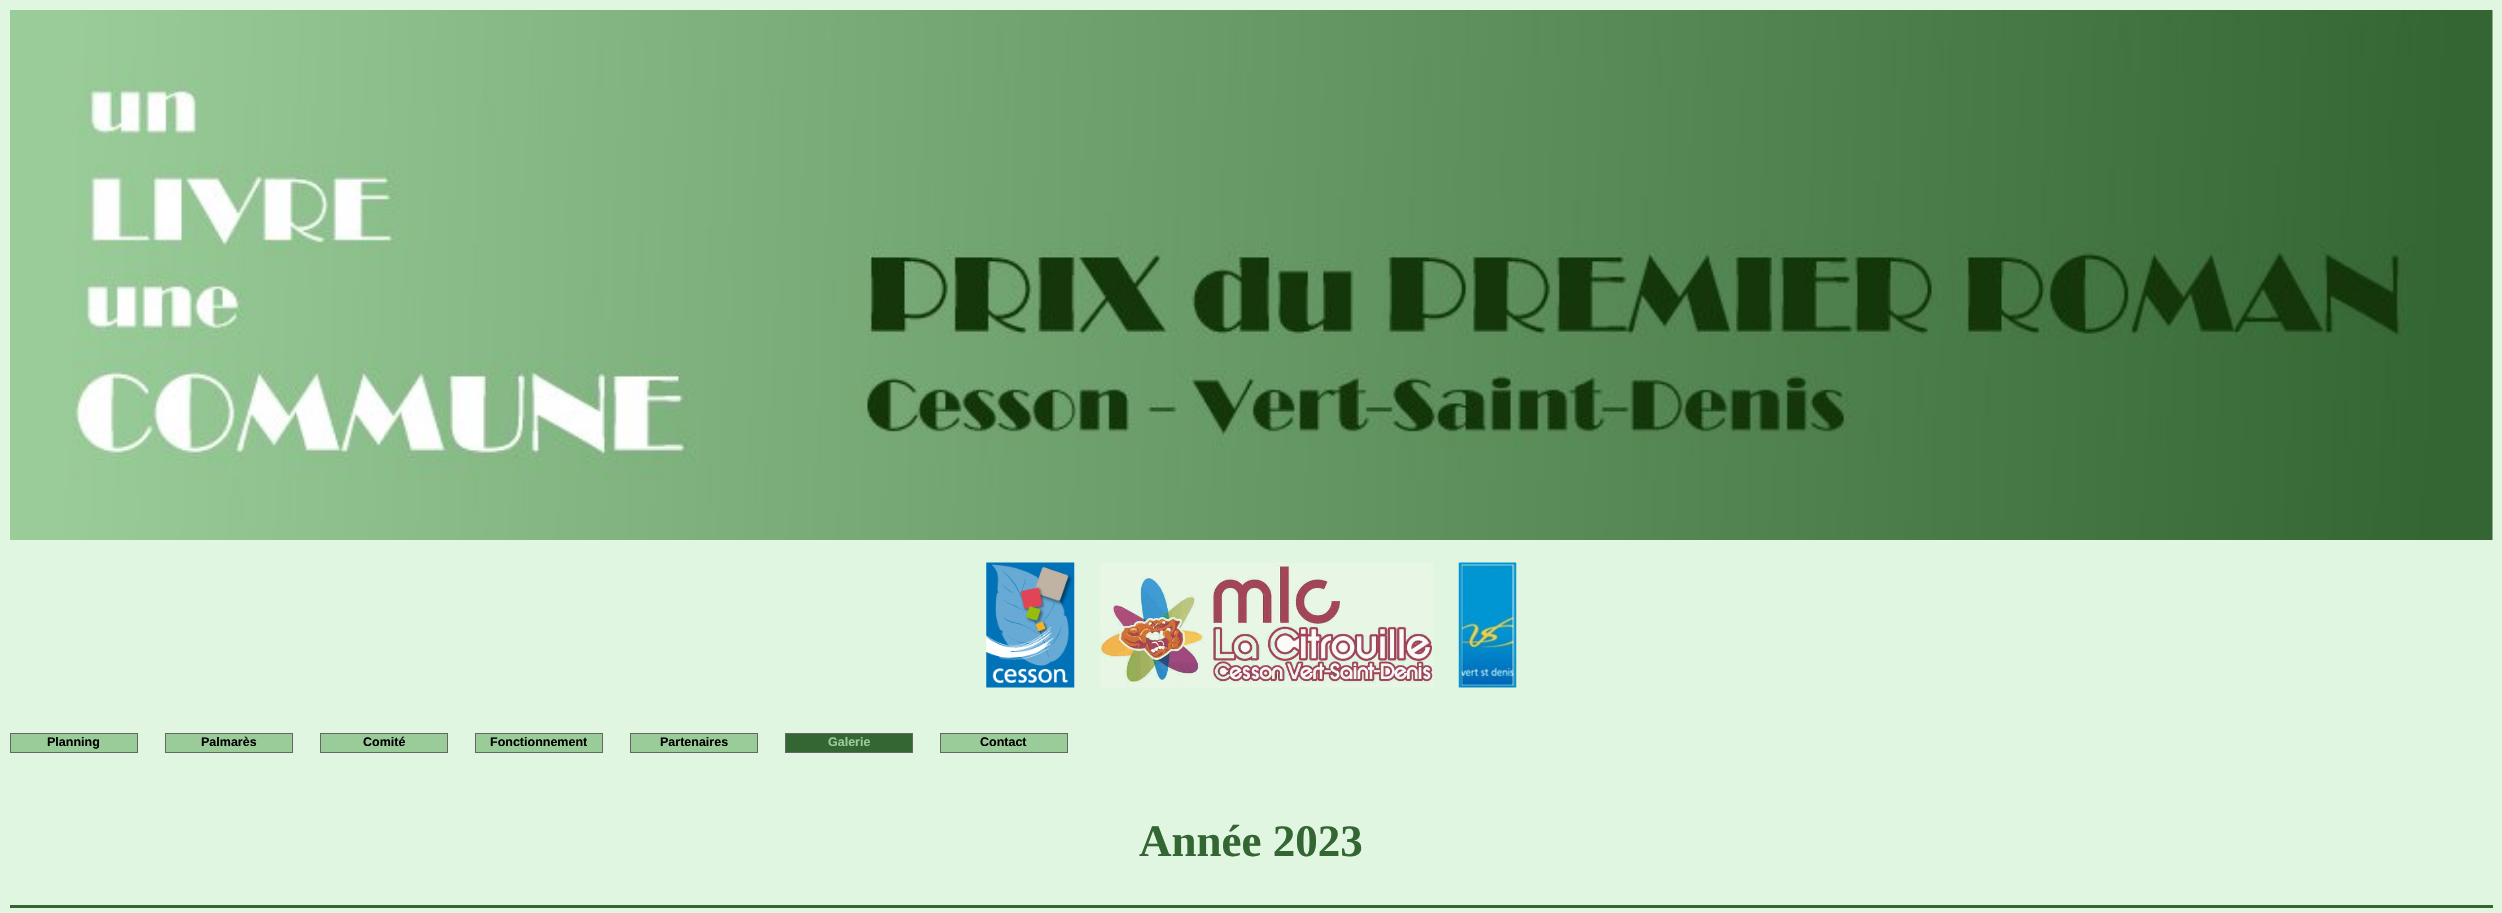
void draw(SkCanvas* canvas) {
    SkPaint paint;
    paint.setAntiAlias(true);
    auto face = [&](const char* family, int weight, float size, bool italic = false) {
        SkFontStyle style(weight, SkFontStyle::kNormal_Width,
            italic ? SkFontStyle::kItalic_Slant : SkFontStyle::kUpright_Slant);
        SkFont result(fontMgr->matchFamilyStyle(family, style), size);
        result.setSubpixel(true);
        return result;
    };
    auto write = [&](const char* s, float x, float y, const SkFont& font, SkColor color) {
        SkPaint ink(SkColor4f::FromColor(color));
        ink.setAntiAlias(true);
        canvas->drawString(s, x, y, font, ink);
    };
    auto block = [&](float x, float y, float w, float h, SkColor color) {
        SkPaint ink(SkColor4f::FromColor(color));
        ink.setAntiAlias(true);
        canvas->drawRect(SkRect::MakeXYWH(x, y, w, h), ink);
    };
    auto paste = [&](const char* path, float x, float y, float w, float h) {
        auto image = SkImages::DeferredFromEncodedData(SkData::MakeFromFileName(path));
        canvas->drawImageRect(image, SkRect::MakeXYWH(x, y, w, h), SkSamplingOptions());
    };
    canvas->clear(SkColorSetRGB(225, 246, 224));
    paste("pic1.png", 10, 10, 2483, 530);
    paste("pic2.png", 986, 562, 89, 126);
    paste("pic3.png", 1100, 562, 334, 126);
    paste("pic4.png", 1458, 562, 59, 126);
    paint.setColor(SkColorSetRGB(153, 204, 153));
    canvas->drawRect(SkRect::MakeXYWH(10.5f, 733.5f, 127, 19), paint);
    paint.setStyle(SkPaint::kStroke_Style);
    paint.setStrokeWidth(1);
    paint.setColor(SkColorSetRGB(102, 102, 102));
    canvas->drawRect(SkRect::MakeXYWH(10.5f, 733.5f, 127, 19), paint);
    auto kFont1 = face("Liberation Sans", 700, 12.5f);
    write("Planning", 47, 746, kFont1, SK_ColorBLACK);
    paint.setStyle(SkPaint::kFill_Style);
    paint.setColor(SkColorSetRGB(153, 204, 153));
    canvas->drawRect(SkRect::MakeXYWH(165.5f, 733.5f, 127, 19), paint);
    paint.setStyle(SkPaint::kStroke_Style);
    paint.setColor(SkColorSetRGB(102, 102, 102));
    canvas->drawRect(SkRect::MakeXYWH(165.5f, 733.5f, 127, 19), paint);
    write("Palmarès", 201, 746, kFont1, SK_ColorBLACK);
    paint.setStyle(SkPaint::kFill_Style);
    paint.setColor(SkColorSetRGB(153, 204, 153));
    canvas->drawRect(SkRect::MakeXYWH(320.5f, 733.5f, 127, 19), paint);
    paint.setStyle(SkPaint::kStroke_Style);
    paint.setColor(SkColorSetRGB(102, 102, 102));
    canvas->drawRect(SkRect::MakeXYWH(320.5f, 733.5f, 127, 19), paint);
    write("Comité", 363, 746, kFont1, SK_ColorBLACK);
    paint.setStyle(SkPaint::kFill_Style);
    paint.setColor(SkColorSetRGB(153, 204, 153));
    canvas->drawRect(SkRect::MakeXYWH(475.5f, 733.5f, 127, 19), paint);
    paint.setStyle(SkPaint::kStroke_Style);
    paint.setColor(SkColorSetRGB(102, 102, 102));
    canvas->drawRect(SkRect::MakeXYWH(475.5f, 733.5f, 127, 19), paint);
    write("Fonctionnement", 490, 746, kFont1, SK_ColorBLACK);
    paint.setStyle(SkPaint::kFill_Style);
    paint.setColor(SkColorSetRGB(153, 204, 153));
    canvas->drawRect(SkRect::MakeXYWH(630.5f, 733.5f, 127, 19), paint);
    paint.setStyle(SkPaint::kStroke_Style);
    paint.setColor(SkColorSetRGB(102, 102, 102));
    canvas->drawRect(SkRect::MakeXYWH(630.5f, 733.5f, 127, 19), paint);
    write("Partenaires", 660, 746, kFont1, SK_ColorBLACK);
    paint.setStyle(SkPaint::kFill_Style);
    paint.setColor(SkColorSetRGB(51, 102, 51));
    canvas->drawRect(SkRect::MakeXYWH(785.5f, 733.5f, 127, 19), paint);
    paint.setStyle(SkPaint::kStroke_Style);
    paint.setColor(SkColorSetRGB(102, 102, 102));
    canvas->drawRect(SkRect::MakeXYWH(785.5f, 733.5f, 127, 19), paint);
    write("Galerie", 828, 746, kFont1, SkColorSetRGB(153, 204, 153));
    paint.setStyle(SkPaint::kFill_Style);
    paint.setColor(SkColorSetRGB(153, 204, 153));
    canvas->drawRect(SkRect::MakeXYWH(940.5f, 733.5f, 127, 19), paint);
    paint.setStyle(SkPaint::kStroke_Style);
    paint.setColor(SkColorSetRGB(102, 102, 102));
    canvas->drawRect(SkRect::MakeXYWH(940.5f, 733.5f, 127, 19), paint);
    write("Contact", 980, 746, kFont1, SK_ColorBLACK);
    auto kFont2 = face("Liberation Serif", 700, 45);
    write("Année 2023", 1139, 856, kFont2, SkColorSetRGB(51, 102, 51));
    block(10, 905, 2483, 3, SkColorSetRGB(51, 102, 51));
}
